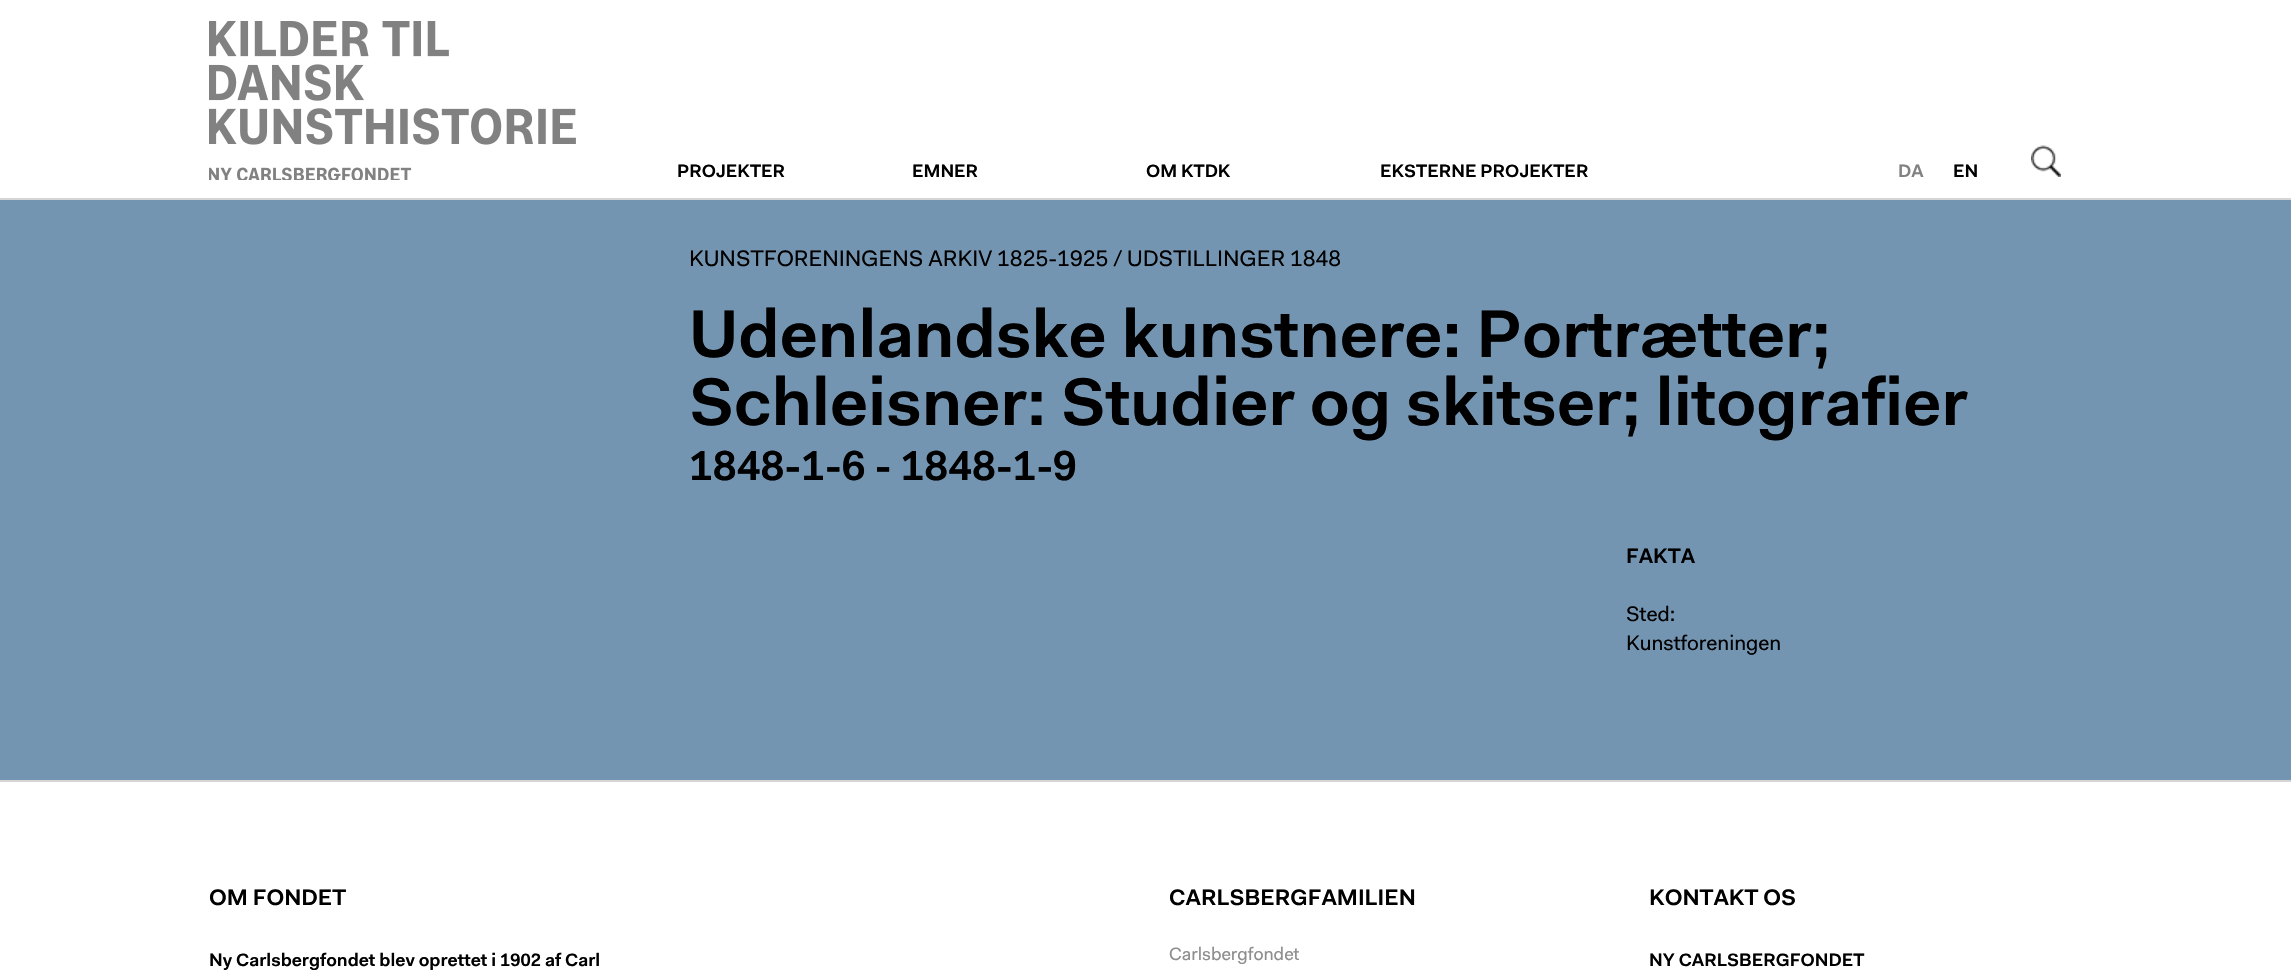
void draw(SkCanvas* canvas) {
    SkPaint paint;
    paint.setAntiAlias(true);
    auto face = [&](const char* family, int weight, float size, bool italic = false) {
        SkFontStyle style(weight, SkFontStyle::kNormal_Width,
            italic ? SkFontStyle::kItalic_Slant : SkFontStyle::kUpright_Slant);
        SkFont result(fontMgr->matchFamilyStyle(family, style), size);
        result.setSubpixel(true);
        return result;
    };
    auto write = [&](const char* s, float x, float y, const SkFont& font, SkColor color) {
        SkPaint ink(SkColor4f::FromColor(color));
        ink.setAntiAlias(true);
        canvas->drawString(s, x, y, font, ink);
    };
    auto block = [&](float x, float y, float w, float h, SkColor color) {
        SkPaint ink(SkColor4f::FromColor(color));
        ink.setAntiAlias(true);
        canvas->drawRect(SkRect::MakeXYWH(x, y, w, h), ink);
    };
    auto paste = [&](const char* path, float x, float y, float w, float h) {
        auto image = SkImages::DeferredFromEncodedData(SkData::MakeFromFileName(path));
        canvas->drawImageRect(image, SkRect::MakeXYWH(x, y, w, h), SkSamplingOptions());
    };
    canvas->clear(SK_ColorWHITE);
    block(0, 198, 2291, 2, SkColorSetRGB(213, 213, 213));
    paste("pic1.png", 209, 21, 367, 159);
    auto kFont1 = face("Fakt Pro", 600, 18);
    write("PROJEKTER", 677, 177, kFont1, SK_ColorBLACK);
    write("EMNER", 912, 177, kFont1, SK_ColorBLACK);
    write("OM KTDK", 1146, 177, kFont1, SK_ColorBLACK);
    write("EKSTERNE PROJEKTER", 1380, 177, kFont1, SK_ColorBLACK);
    write("DA", 1898, 177, kFont1, SkColorSetRGB(129, 129, 129));
    write("EN", 1953, 177, kFont1, SK_ColorBLACK);
    paste("pic2.png", 2031, 145, 30, 32);
    block(0, 200, 2291, 580, SkColorSetRGB(116, 149, 177));
    auto kFont2 = face("Fakt Pro", 400, 22.5f);
    write("KUNSTFORENINGENS ARKIV 1825-1925 / UDSTILLINGER 1848", 689, 266, kFont2, SK_ColorBLACK);
    auto kFont3 = face("Fakt Pro", 600, 67.5f);
    write("Udenlandske kunstnere: Portrætter;", 689, 357, kFont3, SK_ColorBLACK);
    write("Schleisner: Studier og skitser; litografier", 689, 425, kFont3, SK_ColorBLACK);
    auto kFont4 = face("Fakt Pro", 600, 42);
    write("1848-1-6 - 1848-1-9", 689, 480, kFont4, SK_ColorBLACK);
    auto kFont5 = face("Fakt Pro", 600, 21);
    write("FAKTA", 1626, 563, kFont5, SK_ColorBLACK);
    auto kFont6 = face("Fakt Pro", 400, 21);
    write("Sted:", 1626, 621, kFont6, SK_ColorBLACK);
    write("Kunstforeningen", 1626, 650, kFont6, SK_ColorBLACK);
    block(0, 780, 2291, 2, SkColorSetRGB(213, 213, 213));
    auto kFont7 = face("Fakt Pro", 600, 22.5f);
    write("OM FONDET", 209, 905, kFont7, SK_ColorBLACK);
    write("Ny Carlsbergfondet blev oprettet i 1902 af Carl", 209, 966, kFont1, SK_ColorBLACK);
    write("CARLSBERGFAMILIEN", 1169, 905, kFont7, SK_ColorBLACK);
    auto kFont8 = face("Fakt Pro", 400, 18);
    write("Carlsbergfondet", 1169, 960, kFont8, SkColorSetRGB(142, 142, 142));
    write("KONTAKT OS", 1649, 905, kFont7, SK_ColorBLACK);
    write("NY CARLSBERGFONDET", 1649, 966, kFont1, SK_ColorBLACK);
}
